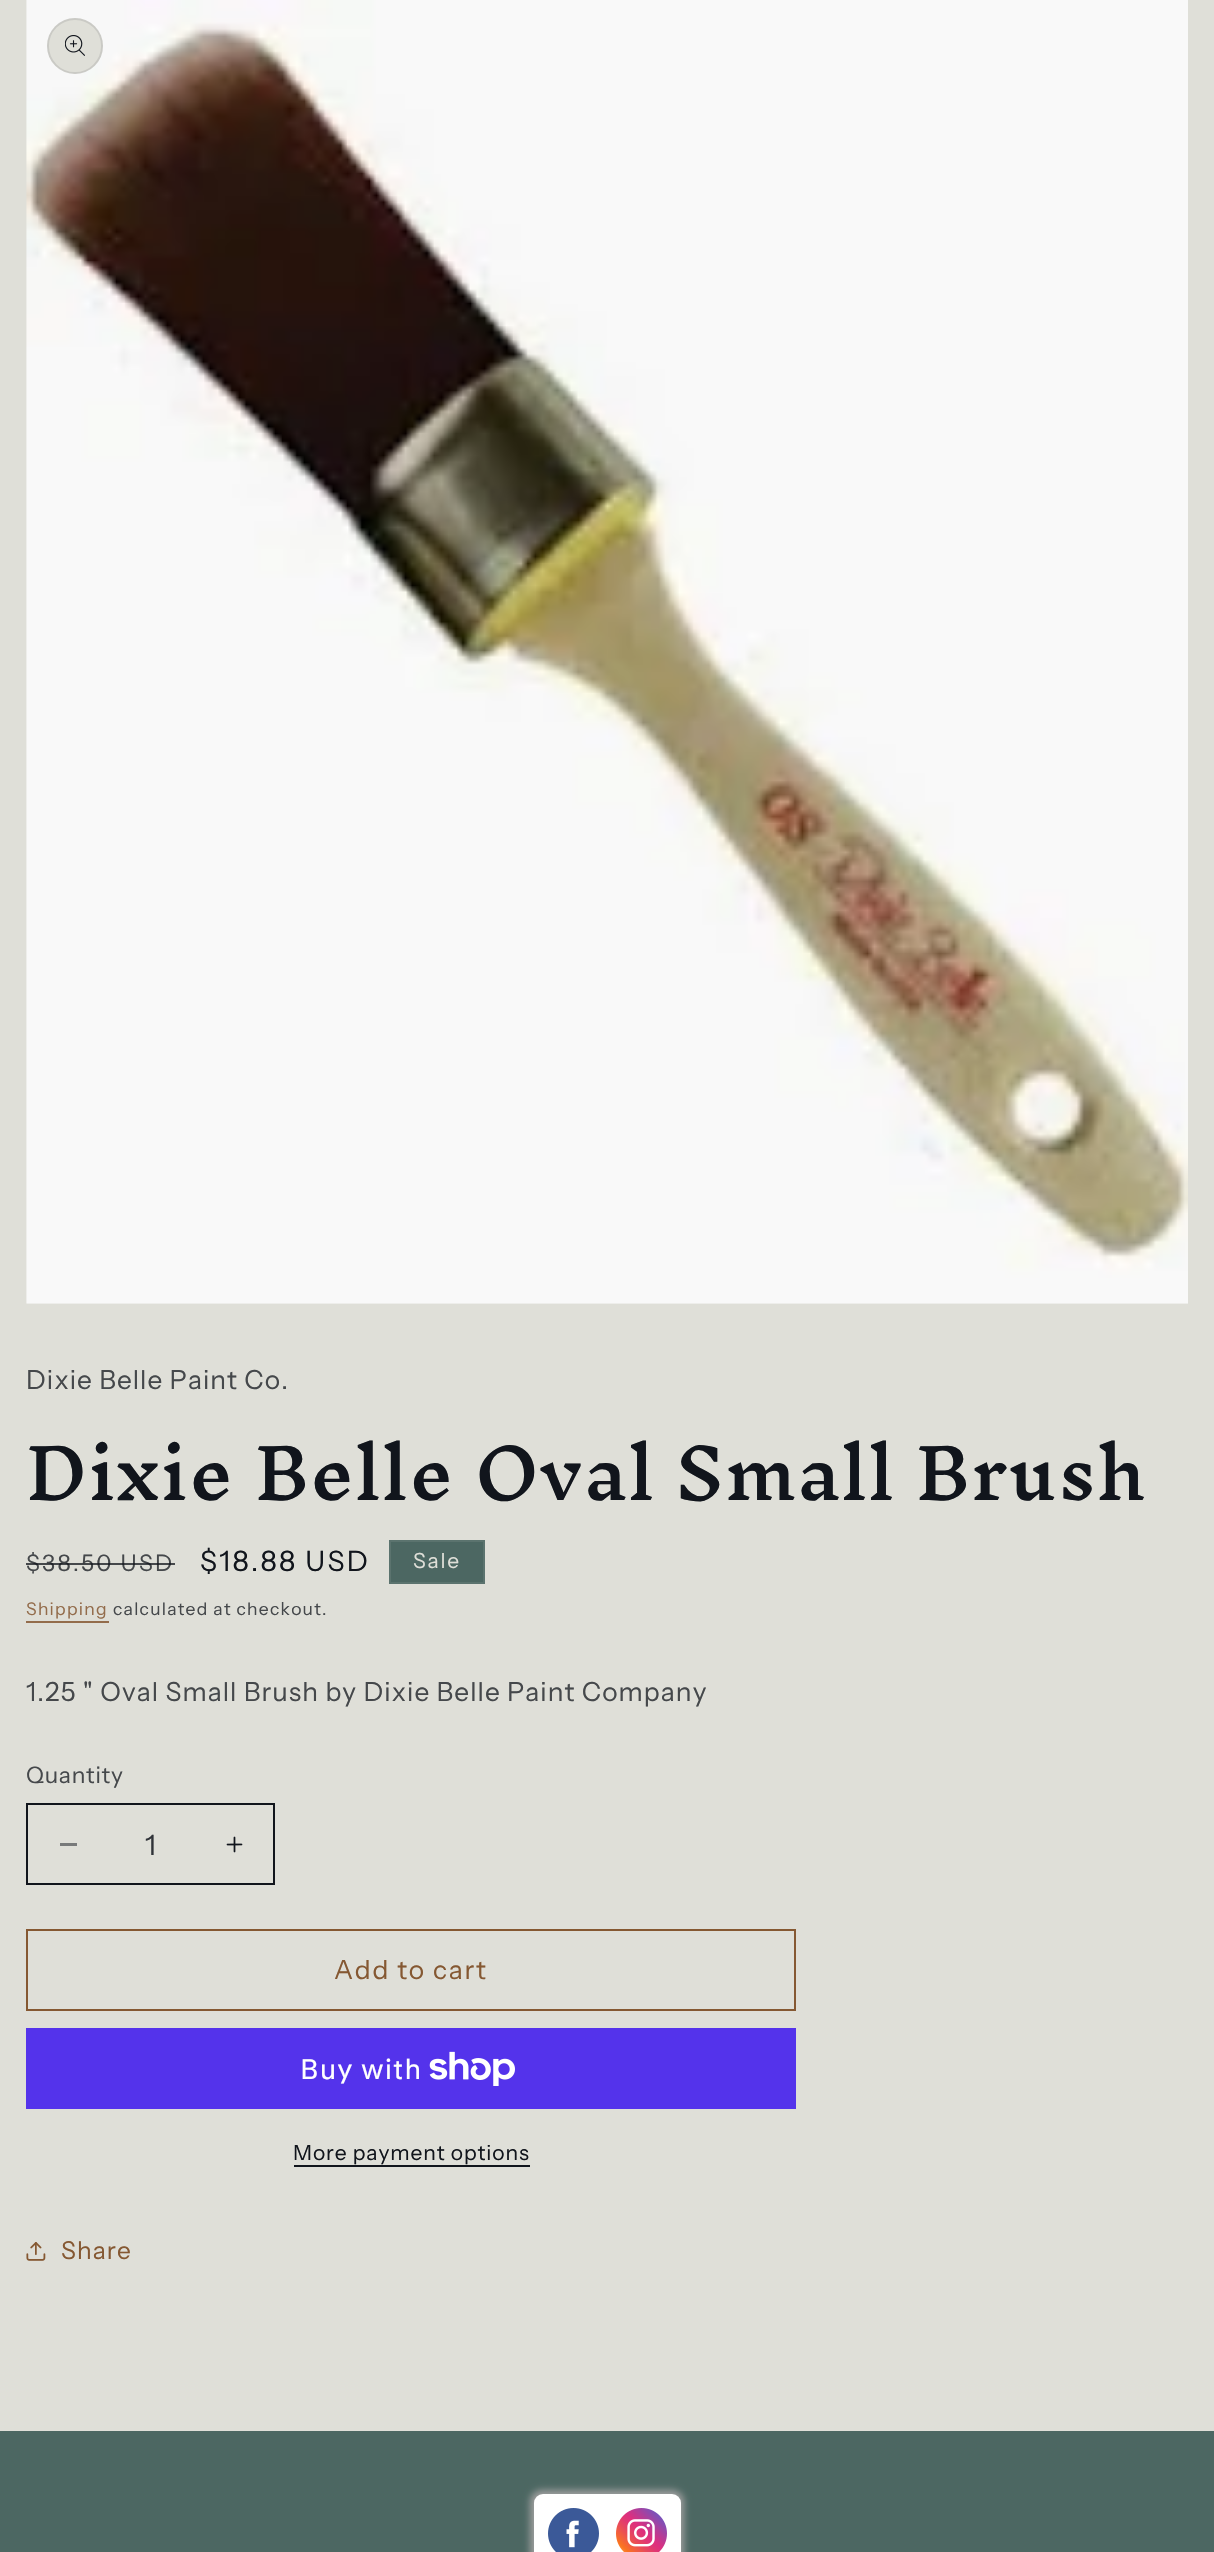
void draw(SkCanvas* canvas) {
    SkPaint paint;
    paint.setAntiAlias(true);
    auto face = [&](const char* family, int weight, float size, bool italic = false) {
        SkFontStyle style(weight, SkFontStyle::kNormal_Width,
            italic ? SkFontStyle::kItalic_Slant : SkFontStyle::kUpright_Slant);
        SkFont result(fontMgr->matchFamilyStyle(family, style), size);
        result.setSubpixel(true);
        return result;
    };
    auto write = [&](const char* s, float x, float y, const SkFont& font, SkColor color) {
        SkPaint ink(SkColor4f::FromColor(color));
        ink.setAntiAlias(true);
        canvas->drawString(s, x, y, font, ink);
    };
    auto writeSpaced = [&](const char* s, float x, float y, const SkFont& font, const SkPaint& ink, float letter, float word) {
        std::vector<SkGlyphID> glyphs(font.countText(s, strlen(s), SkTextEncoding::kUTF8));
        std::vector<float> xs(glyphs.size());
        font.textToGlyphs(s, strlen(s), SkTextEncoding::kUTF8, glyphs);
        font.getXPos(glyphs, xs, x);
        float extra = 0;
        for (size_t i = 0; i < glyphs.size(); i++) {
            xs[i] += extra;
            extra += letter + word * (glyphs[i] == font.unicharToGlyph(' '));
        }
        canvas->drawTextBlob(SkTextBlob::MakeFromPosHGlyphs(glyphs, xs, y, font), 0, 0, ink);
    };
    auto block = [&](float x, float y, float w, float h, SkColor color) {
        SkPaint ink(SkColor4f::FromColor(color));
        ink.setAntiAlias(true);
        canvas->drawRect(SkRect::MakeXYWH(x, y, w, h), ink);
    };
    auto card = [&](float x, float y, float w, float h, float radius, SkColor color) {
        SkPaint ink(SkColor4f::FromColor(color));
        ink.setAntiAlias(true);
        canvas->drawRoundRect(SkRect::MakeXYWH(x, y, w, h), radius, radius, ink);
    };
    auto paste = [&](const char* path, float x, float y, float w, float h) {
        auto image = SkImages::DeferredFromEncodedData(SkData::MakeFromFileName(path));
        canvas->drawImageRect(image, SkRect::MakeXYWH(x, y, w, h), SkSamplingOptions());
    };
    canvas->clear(SkColorSetRGB(223, 223, 216));
    paste("pic1.png", 26, 0, 1162, 1304);
    paint.setColor(SkColorSetRGB(223, 223, 216));
    canvas->drawCircle(75, 46, 28, paint);
    paint.setStyle(SkPaint::kStroke_Style);
    paint.setStrokeWidth(2);
    paint.setColor(SkColorSetARGB(26, 17, 21, 28));
    canvas->drawCircle(75, 46, 27, paint);
    paste("pic2.png", 65, 35, 20, 21);
    auto kFont1 = face("Instrument Sans", 400, 26.25f);
    paint.setStyle(SkPaint::kFill_Style);
    paint.setColor(SkColorSetRGB(69, 72, 75));
    writeSpaced("Dixie Belle Paint Co.", 26, 1389, kFont1, paint, 1.05f, 0);
    auto kFont2 = face("Inknut Antiqua", 500, 68.25f);
    paint.setColor(SkColorSetRGB(17, 21, 28));
    writeSpaced("Dixie Belle Oval Small Brush", 26, 1500, kFont2, paint, 1.35f, 0);
    auto kFont3 = face("Instrument Sans", 400, 22.75f);
    paint.setColor(SkColorSetRGB(69, 72, 75));
    writeSpaced("$38.50 USD", 26, 1571, kFont3, paint, 2.25f, 0);
    block(26, 1563, 149, 2, SkColorSetARGB(191, 17, 21, 28));
    auto kFont4 = face("Instrument Sans", 400, 28);
    paint.setColor(SkColorSetRGB(17, 21, 28));
    writeSpaced("$18.88 USD", 200, 1571, kFont4, paint, 2.25f, 0);
    paint.setColor(SkColorSetRGB(76, 103, 98));
    canvas->drawRect(SkRect::MakeXYWH(390, 1541, 94, 42), paint);
    paint.setStyle(SkPaint::kStroke_Style);
    paint.setColor(SkColorSetRGB(91, 115, 110));
    canvas->drawRect(SkRect::MakeXYWH(390, 1541, 94, 42), paint);
    auto kFont5 = face("Instrument Sans", 400, 21);
    paint.setStyle(SkPaint::kFill_Style);
    paint.setColor(SkColorSetRGB(223, 223, 216));
    writeSpaced("Sale", 413, 1568, kFont5, paint, 1.75f, 0);
    auto kFont6 = face("Instrument Sans", 400, 17.5f);
    paint.setColor(SkColorSetRGB(147, 108, 75));
    writeSpaced("Shipping", 26, 1615, kFont6, paint, 1.25f, 0);
    block(26, 1621, 83, 2, SkColorSetRGB(147, 108, 75));
    paint.setColor(SkColorSetRGB(69, 72, 75));
    writeSpaced("calculated at checkout.", 113, 1615, kFont6, paint, 1.25f, 0);
    writeSpaced("1.25 \" Oval Small Brush by Dixie Belle Paint Company", 26, 1701, kFont1, paint, 1.05f, 0);
    writeSpaced("Quantity", 26, 1783, kFont3, paint, 0.75f, 0);
    block(60, 1843, 17, 3, SkColorSetRGB(120, 122, 122));
    paste("pic3.png", 226, 1836, 17, 17);
    paint.setStyle(SkPaint::kStroke_Style);
    paint.setColor(SkColorSetRGB(17, 21, 28));
    canvas->drawRect(SkRect::MakeXYWH(27, 1804, 247, 80), paint);
    write("1", 145, 1855, kFont4, SkColorSetRGB(48, 51, 56));
    paint.setColor(SkColorSetRGB(133, 88, 50));
    canvas->drawRect(SkRect::MakeXYWH(27, 1930, 768, 80), paint);
    paint.setStyle(SkPaint::kFill_Style);
    writeSpaced("Add to cart", 334, 1979, kFont1, paint, 1.75f, 0);
    block(26, 2028, 770, 81, SkColorSetRGB(84, 51, 235));
    auto kFont7 = face("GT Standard", 400, 28);
    paint.setColor(SK_ColorWHITE);
    writeSpaced("Buy with", 300, 2079, kFont7, paint, 1.05f, 0);
    paste("pic4.png", 429, 2051, 86, 35);
    paint.setColor(SkColorSetRGB(17, 21, 28));
    writeSpaced("More payment options", 293, 2160, kFont5, paint, 0.9f, 0);
    block(294, 2165, 236, 2, SkColorSetRGB(17, 21, 28));
    paste("pic5.png", 26, 2242, 20, 19);
    auto kFont8 = face("Instrument Sans", 400, 24.5f);
    paint.setColor(SkColorSetRGB(133, 88, 50));
    writeSpaced("Share", 61, 2259, kFont8, paint, 1.05f, 0);
    block(0, 2431, 1214, 121, SkColorSetRGB(76, 103, 98));
    paint.setColor(SkColorSetRGB(158, 158, 158));
    paint.setMaskFilter(SkMaskFilter::MakeBlur(kNormal_SkBlurStyle, 3.5f));
    canvas->drawRoundRect(SkRect::MakeXYWH(530, 2490, 154, 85), 12, 12, paint);
    paint.setMaskFilter(nullptr);
    card(534, 2494, 147, 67, 9, SK_ColorWHITE);
    paste("pic6.png", 548, 2508, 51, 44);
    paste("pic7.png", 616, 2508, 51, 44);
}
